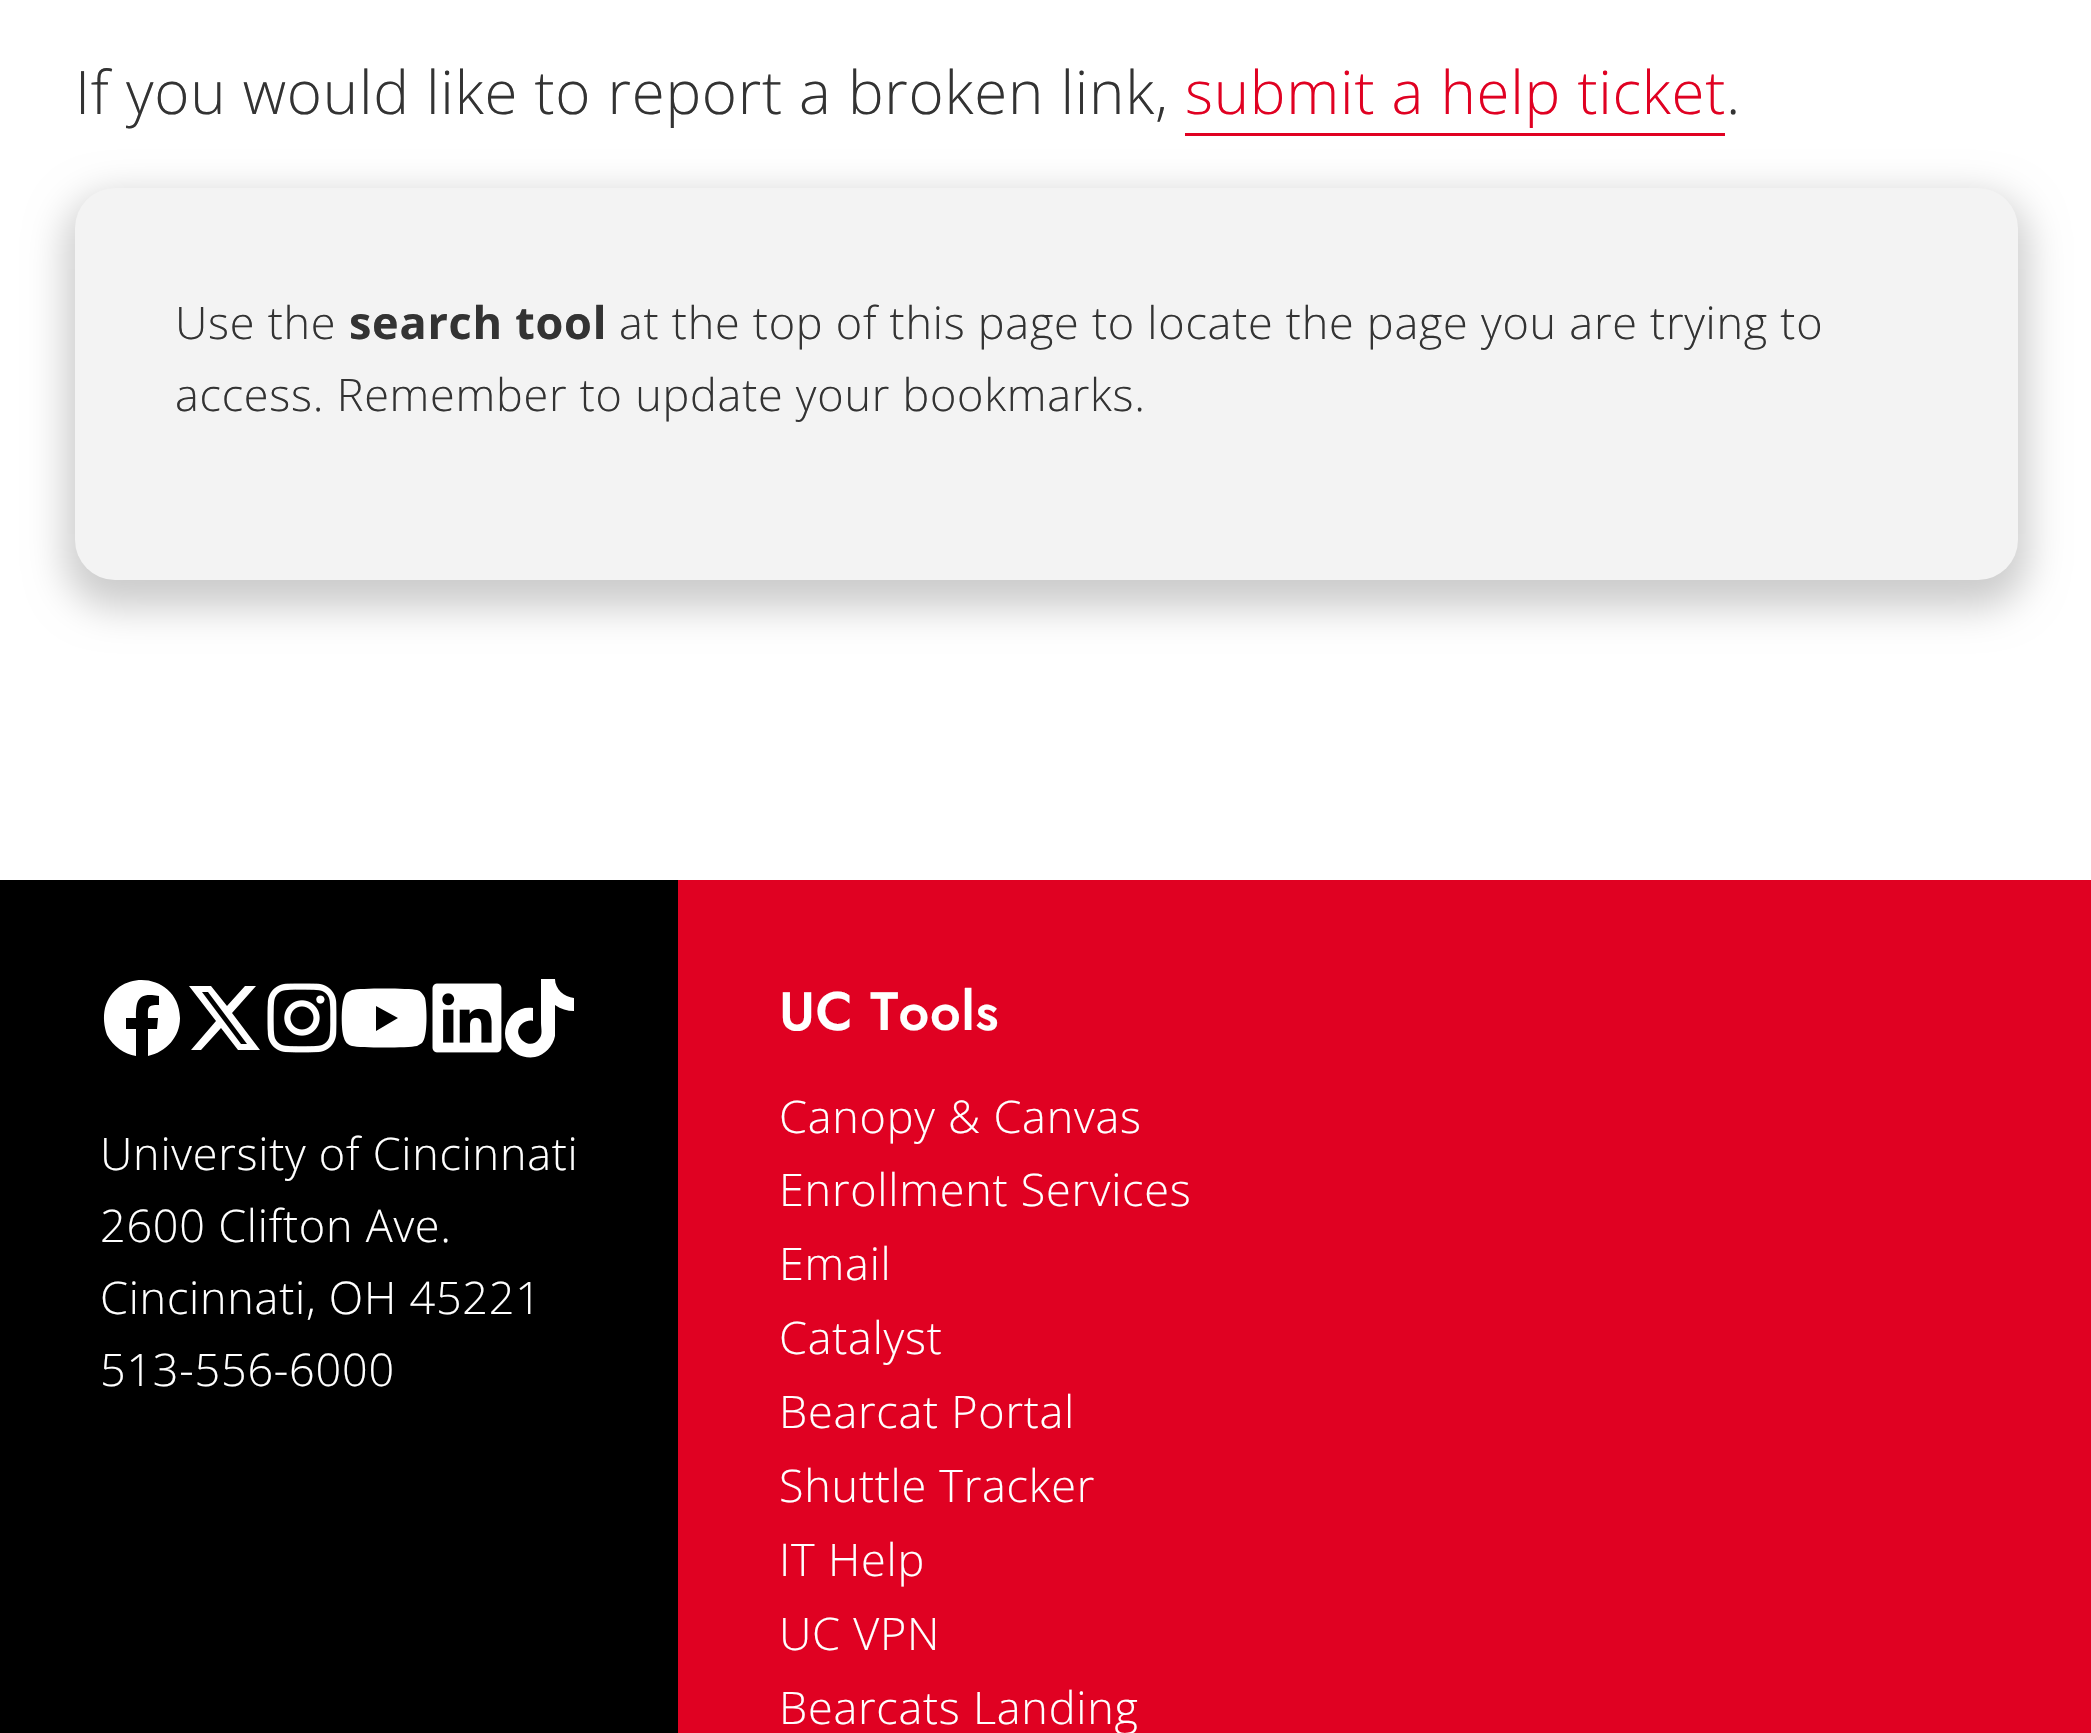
void draw(SkCanvas* canvas) {
    SkPaint paint;
    paint.setAntiAlias(true);
    auto face = [&](const char* family, int weight, float size, bool italic = false) {
        SkFontStyle style(weight, SkFontStyle::kNormal_Width,
            italic ? SkFontStyle::kItalic_Slant : SkFontStyle::kUpright_Slant);
        SkFont result(fontMgr->matchFamilyStyle(family, style), size);
        result.setSubpixel(true);
        return result;
    };
    auto writeSpaced = [&](const char* s, float x, float y, const SkFont& font, const SkPaint& ink, float letter, float word) {
        std::vector<SkGlyphID> glyphs(font.countText(s, strlen(s), SkTextEncoding::kUTF8));
        std::vector<float> xs(glyphs.size());
        font.textToGlyphs(s, strlen(s), SkTextEncoding::kUTF8, glyphs);
        font.getXPos(glyphs, xs, x);
        float extra = 0;
        for (size_t i = 0; i < glyphs.size(); i++) {
            xs[i] += extra;
            extra += letter + word * (glyphs[i] == font.unicharToGlyph(' '));
        }
        canvas->drawTextBlob(SkTextBlob::MakeFromPosHGlyphs(glyphs, xs, y, font), 0, 0, ink);
    };
    auto block = [&](float x, float y, float w, float h, SkColor color) {
        SkPaint ink(SkColor4f::FromColor(color));
        ink.setAntiAlias(true);
        canvas->drawRect(SkRect::MakeXYWH(x, y, w, h), ink);
    };
    auto card = [&](float x, float y, float w, float h, float radius, SkColor color) {
        SkPaint ink(SkColor4f::FromColor(color));
        ink.setAntiAlias(true);
        canvas->drawRoundRect(SkRect::MakeXYWH(x, y, w, h), radius, radius, ink);
    };
    auto paste = [&](const char* path, float x, float y, float w, float h) {
        auto image = SkImages::DeferredFromEncodedData(SkData::MakeFromFileName(path));
        canvas->drawImageRect(image, SkRect::MakeXYWH(x, y, w, h), SkSamplingOptions());
    };
    canvas->clear(SK_ColorWHITE);
    auto kFont1 = face("Open Sans", 300, 60);
    paint.setColor(SkColorSetRGB(51, 51, 51));
    writeSpaced("If you would like to report a broken link,", 75, 114, kFont1, paint, 0.75f, 0);
    paint.setColor(SkColorSetRGB(224, 1, 34));
    writeSpaced("submit a help ticket", 1185, 114, kFont1, paint, 0.75f, 0);
    block(1185, 133, 540, 3, SkColorSetRGB(224, 1, 34));
    paint.setColor(SkColorSetRGB(51, 51, 51));
    writeSpaced(".", 1726, 114, kFont1, paint, 0.75f, 0);
    paint.setColor(SkColorSetARGB(51, 0, 0, 0));
    paint.setMaskFilter(SkMaskFilter::MakeBlur(kNormal_SkBlurStyle, 19));
    canvas->drawRoundRect(SkRect::MakeXYWH(65, 195, 1963, 413), 50, 50, paint);
    paint.setMaskFilter(nullptr);
    card(75, 188, 1943, 392, 40, SkColorSetRGB(243, 243, 243));
    auto kFont2 = face("Open Sans", 300, 45);
    paint.setColor(SkColorSetRGB(51, 51, 51));
    writeSpaced("Use the", 175, 339, kFont2, paint, 0.75f, 0);
    auto kFont3 = face("Open Sans", 700, 45);
    writeSpaced("search tool", 349, 339, kFont3, paint, 0.75f, 0);
    writeSpaced("at the top of this page to locate the page you are trying to", 619, 339, kFont2, paint, 0.75f, 0);
    writeSpaced("access. Remember to update your bookmarks.", 175, 411, kFont2, paint, 0.75f, 0);
    block(678, 880, 1413, 853, SkColorSetRGB(224, 1, 34));
    block(0, 880, 678, 853, SK_ColorBLACK);
    paint.setColor(SK_ColorWHITE);
    canvas->drawPath(SkPathBuilder().moveTo(180, 1018).cubicTo(179, 973, 117, 966, 105, 1008).cubicTo(103, 1017, 104, 1026, 107, 1035).cubicTo(113, 1046, 124, 1054, 136, 1056).lineTo(136, 1029).lineTo(126, 1029).lineTo(126, 1018).lineTo(136, 1018).cubicTo(136, 1005, 136, 994, 152, 995).lineTo(159, 996).lineTo(159, 1005).cubicTo(147, 1005, 148, 1007, 148, 1018).lineTo(158, 1018).lineTo(157, 1029).lineTo(148, 1029).lineTo(148, 1056).cubicTo(166, 1052, 180, 1037, 180, 1018).close().detach(), paint);
    canvas->drawPath(SkPathBuilder().moveTo(245, 986).lineTo(256, 986).lineTo(232, 1013).lineTo(260, 1050).lineTo(238, 1050).lineTo(221, 1028).lineTo(201, 1050).lineTo(191, 1050).lineTo(216, 1021).lineTo(189, 986).lineTo(211, 986).lineTo(227, 1006).close().moveTo(241, 1044).lineTo(247, 1044).lineTo(208, 992).lineTo(202, 992).close().detach(), paint);
    paste("pic1.png", 267, 983, 70, 70);
    canvas->drawPath(SkPathBuilder().moveTo(425, 998).cubicTo(423, 994, 421, 991, 417, 990).cubicTo(409, 988, 360, 988, 352, 990).lineTo(348, 992).cubicTo(346, 993, 345, 995, 344, 998).cubicTo(341, 1006, 341, 1030, 344, 1038).cubicTo(345, 1042, 348, 1045, 352, 1046).cubicTo(360, 1048, 408, 1048, 417, 1046).lineTo(422, 1043).cubicTo(428, 1037, 427, 1007, 425, 998).close().moveTo(376, 1031).lineTo(376, 1006).lineTo(398, 1018).close().detach(), paint);
    paste("pic2.png", 432, 983, 70, 70);
    canvas->drawPath(SkPathBuilder().moveTo(574, 1011).cubicTo(567, 1011, 561, 1009, 555, 1005).lineTo(555, 1036).cubicTo(553, 1046, 545, 1055, 535, 1057).cubicTo(529, 1058, 522, 1057, 517, 1054).cubicTo(494, 1040, 507, 1004, 533, 1008).lineTo(533, 1021).cubicTo(530, 1020, 526, 1021, 523, 1023).cubicTo(509, 1033, 529, 1053, 539, 1039).cubicTo(543, 1035, 541, 1028, 541, 1023).lineTo(541, 979).lineTo(555, 979).cubicTo(555, 989, 564, 997, 574, 998).close().detach(), paint);
    writeSpaced("University of Cincinnati", 100, 1170, kFont2, paint, 0.75f, 0);
    writeSpaced("2600 Clifton Ave.", 100, 1242, kFont2, paint, 0.75f, 0);
    writeSpaced("Cincinnati, OH 45221", 100, 1314, kFont2, paint, 0.75f, 0);
    writeSpaced("513-556-6000", 100, 1386, kFont2, paint, 0.75f, 0);
    auto kFont4 = face("Jost", 500, 54);
    writeSpaced("UC Tools", 779, 1030, kFont4, paint, 0.5f, 0);
    writeSpaced("Canopy & Canvas", 779, 1133, kFont2, paint, 0.75f, 0);
    writeSpaced("Enrollment Services", 779, 1206, kFont2, paint, 0.75f, 0);
    writeSpaced("Email", 779, 1280, kFont2, paint, 0.75f, 0);
    writeSpaced("Catalyst", 779, 1354, kFont2, paint, 0.75f, 0);
    writeSpaced("Bearcat Portal", 779, 1428, kFont2, paint, 0.75f, 0);
    writeSpaced("Shuttle Tracker", 779, 1502, kFont2, paint, 0.75f, 0);
    writeSpaced("IT Help", 779, 1576, kFont2, paint, 0.75f, 0);
    writeSpaced("UC VPN", 779, 1650, kFont2, paint, 0.75f, 0);
    writeSpaced("Bearcats Landing", 779, 1724, kFont2, paint, 0.75f, 0);
}
